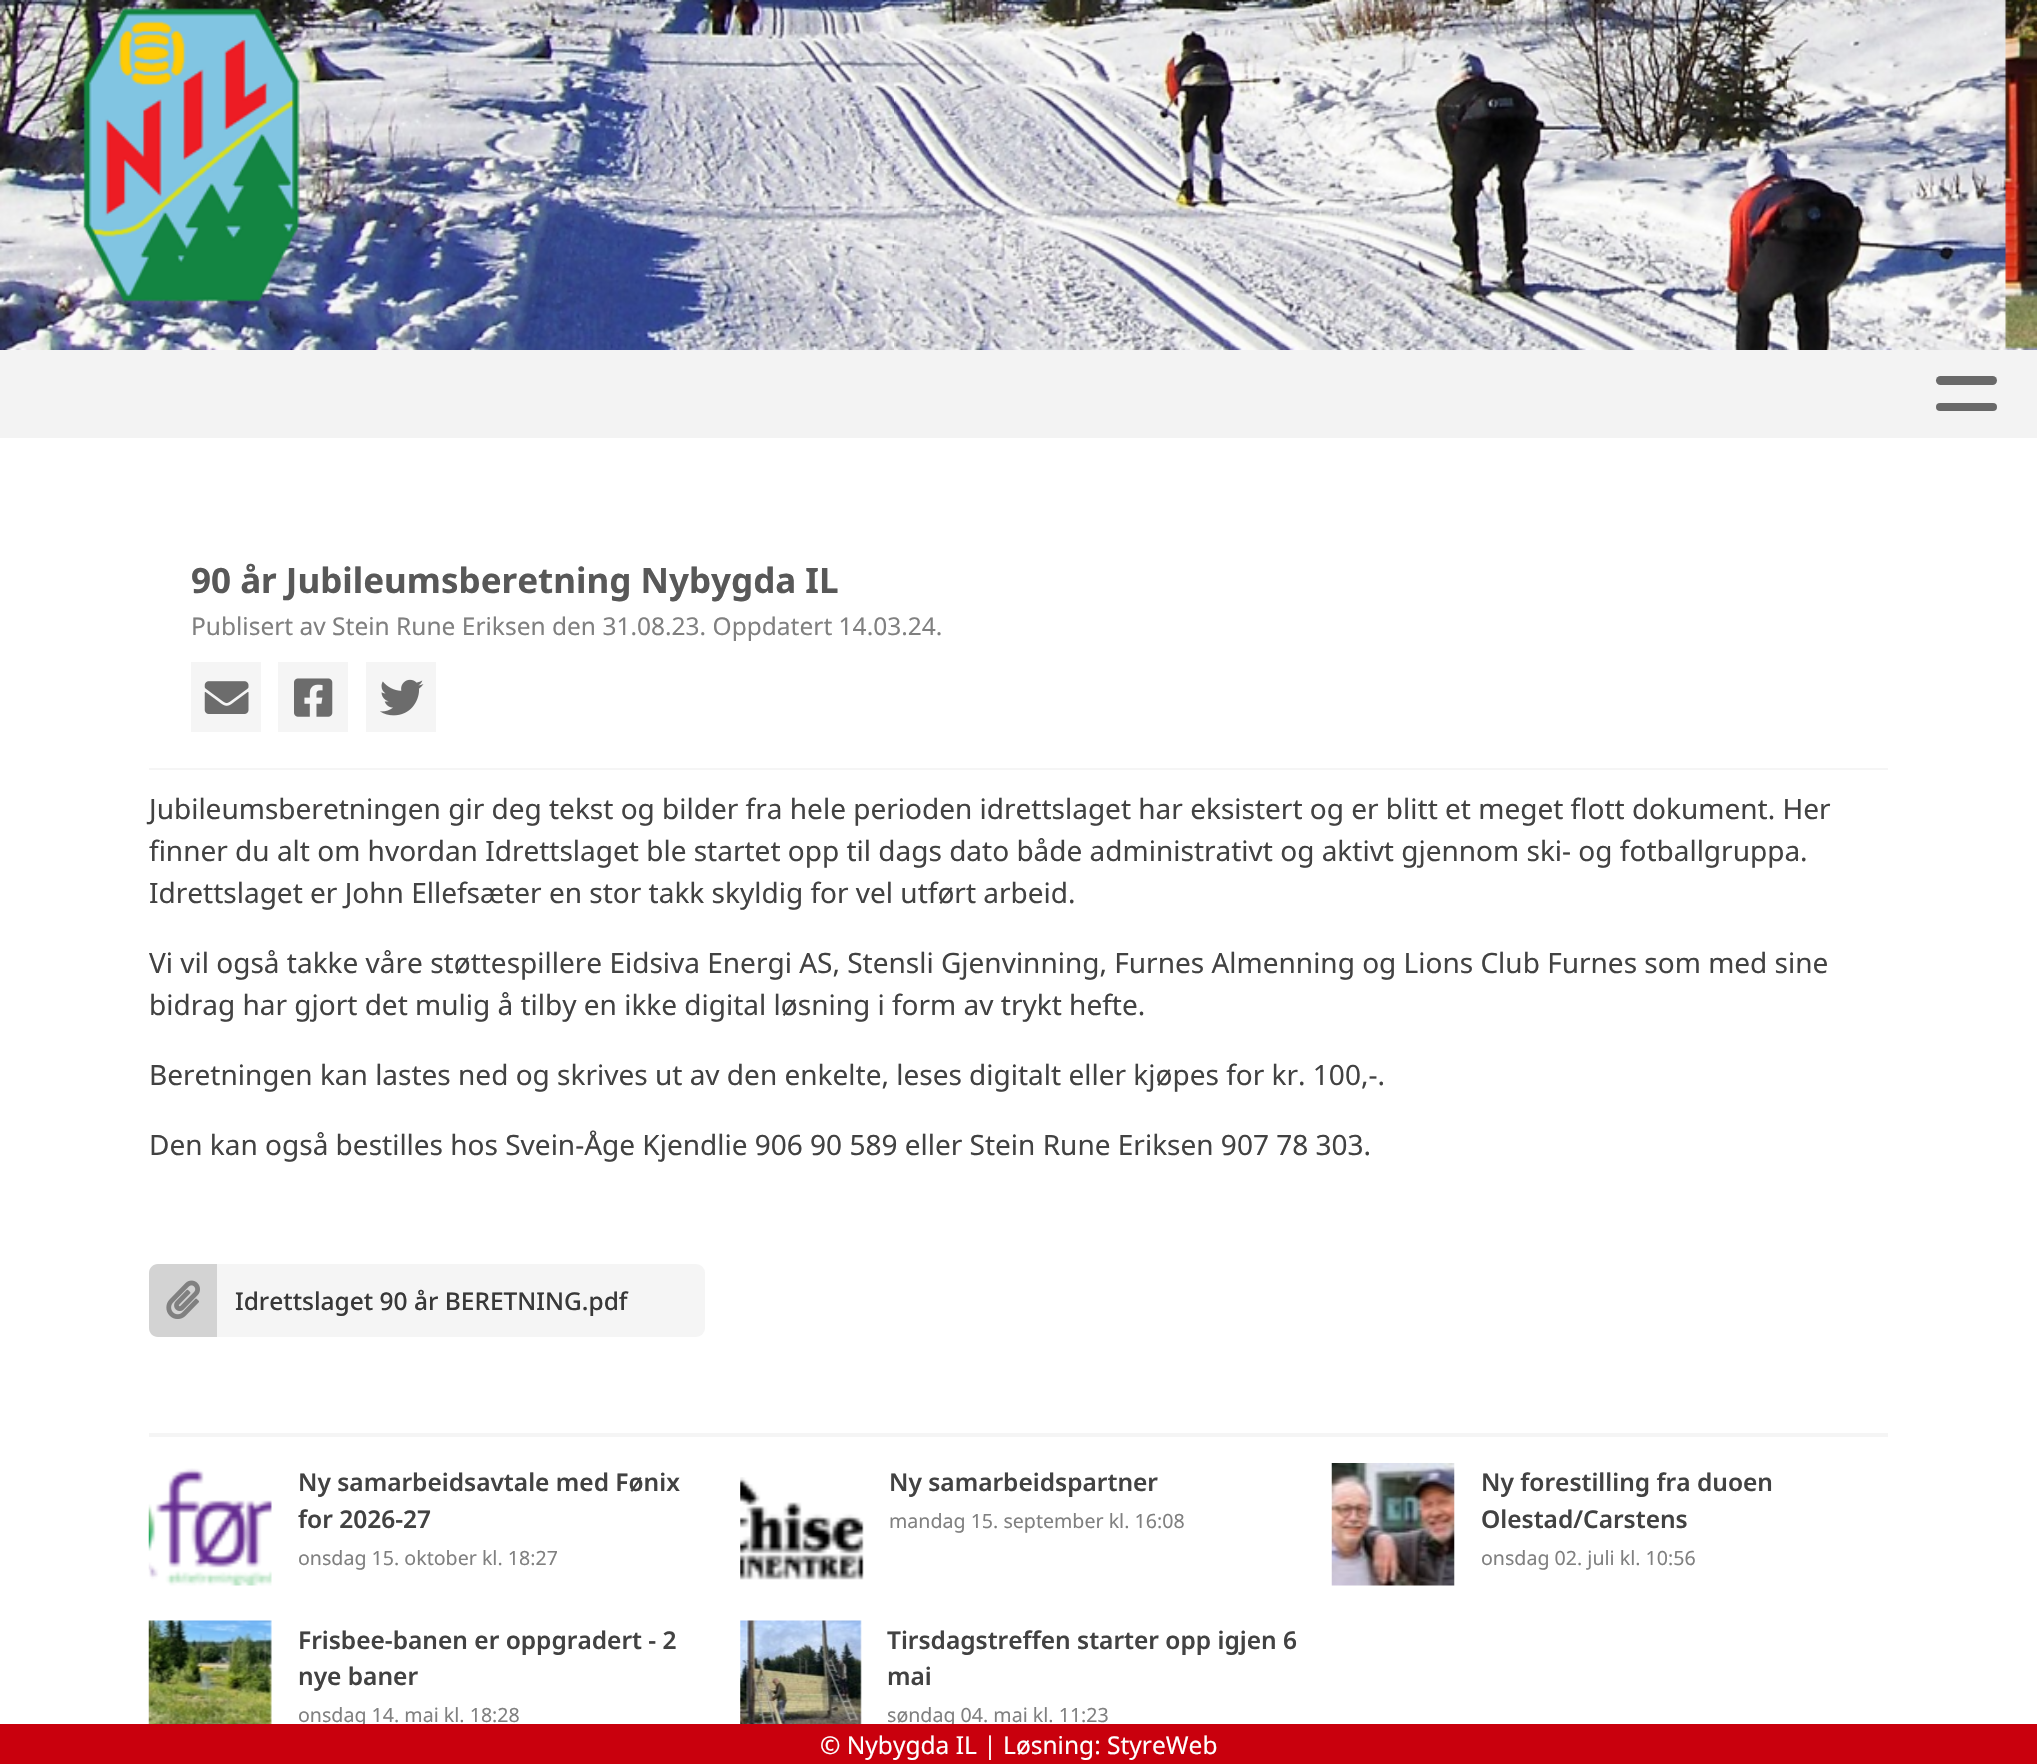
void draw(SkCanvas* canvas) {
    SkPaint paint;
    paint.setAntiAlias(true);
    auto face = [&](const char* family, int weight, float size, bool italic = false) {
        SkFontStyle style(weight, SkFontStyle::kNormal_Width,
            italic ? SkFontStyle::kItalic_Slant : SkFontStyle::kUpright_Slant);
        SkFont result(fontMgr->matchFamilyStyle(family, style), size);
        result.setSubpixel(true);
        return result;
    };
    auto write = [&](const char* s, float x, float y, const SkFont& font, SkColor color) {
        SkPaint ink(SkColor4f::FromColor(color));
        ink.setAntiAlias(true);
        canvas->drawString(s, x, y, font, ink);
    };
    auto block = [&](float x, float y, float w, float h, SkColor color) {
        SkPaint ink(SkColor4f::FromColor(color));
        ink.setAntiAlias(true);
        canvas->drawRect(SkRect::MakeXYWH(x, y, w, h), ink);
    };
    auto card = [&](float x, float y, float w, float h, float radius, SkColor color) {
        SkPaint ink(SkColor4f::FromColor(color));
        ink.setAntiAlias(true);
        canvas->drawRoundRect(SkRect::MakeXYWH(x, y, w, h), radius, radius, ink);
    };
    auto paste = [&](const char* path, float x, float y, float w, float h) {
        auto image = SkImages::DeferredFromEncodedData(SkData::MakeFromFileName(path));
        canvas->drawImageRect(image, SkRect::MakeXYWH(x, y, w, h), SkSamplingOptions());
    };
    canvas->clear(SK_ColorWHITE);
    paste("pic1.png", 0, 0, 2037, 350);
    block(0, 350, 2037, 88, SkColorSetRGB(243, 243, 243));
    card(1936, 376, 61, 9, 4.5f, SkColorSetRGB(105, 105, 105));
    card(1936, 403, 61, 8, 4, SkColorSetRGB(105, 105, 105));
    block(149, 768, 1739, 2, SkColorSetRGB(245, 245, 245));
    auto kFont1 = face("Noto Sans", 700, 35);
    write("90 år Jubileumsberetning Nybygda IL", 191, 593, kFont1, SkColorSetRGB(88, 88, 88));
    auto kFont2 = face("Noto Sans", 400, 24.5f);
    write("Publisert av Stein Rune Eriksen den 31.08.23. Oppdatert 14.03.24.", 191, 635, kFont2, SkColorSetRGB(128, 128, 128));
    block(191, 662, 70, 70, SkColorSetRGB(245, 245, 245));
    paste("pic2.png", 204, 681, 45, 33);
    block(278, 662, 70, 70, SkColorSetRGB(245, 245, 245));
    paste("pic3.png", 294, 678, 39, 39);
    block(366, 662, 70, 70, SkColorSetRGB(245, 245, 245));
    paste("pic4.png", 380, 679, 44, 37);
    auto kFont3 = face("Noto Sans", 400, 28);
    write("Jubileumsberetningen gir deg tekst og bilder fra hele perioden idrettslaget har eksistert og er blitt et meget flott dokument. Her", 149, 819, kFont3, SkColorSetRGB(66, 66, 66));
    write("finner du alt om hvordan Idrettslaget ble startet opp til dags dato både administrativt og aktivt gjennom ski- og fotballgruppa.", 149, 861, kFont3, SkColorSetRGB(66, 66, 66));
    write("Idrettslaget er John Ellefsæter en stor takk skyldig for vel utført arbeid.", 149, 903, kFont3, SkColorSetRGB(66, 66, 66));
    write("Vi vil også takke våre støttespillere Eidsiva Energi AS, Stensli Gjenvinning, Furnes Almenning og Lions Club Furnes som med sine", 149, 973, kFont3, SkColorSetRGB(66, 66, 66));
    write("bidrag har gjort det mulig å tilby en ikke digital løsning i form av trykt hefte.", 149, 1015, kFont3, SkColorSetRGB(66, 66, 66));
    write("Beretningen kan lastes ned og skrives ut av den enkelte, leses digitalt eller kjøpes for kr. 100,-.", 149, 1085, kFont3, SkColorSetRGB(66, 66, 66));
    write("Den kan også bestilles hos Svein-Åge Kjendlie 906 90 589 eller Stein Rune Eriksen 907 78 303.", 149, 1155, kFont3, SkColorSetRGB(66, 66, 66));
    card(149, 1264, 556, 73, 9, SkColorSetRGB(245, 245, 245));
    paint.setColor(SkColorSetRGB(211, 211, 211));
    canvas->drawPath(SkPathBuilder().moveTo(158, 1264).lineTo(217, 1264).lineTo(217, 1337).lineTo(158, 1337).cubicTo(153, 1337, 149, 1333, 149, 1328).lineTo(149, 1273).cubicTo(149, 1268, 153, 1264, 158, 1264).close().detach(), paint);
    paste("pic5.png", 166, 1280, 34, 39);
    auto kFont4 = face("Noto Sans", 500, 24.5f);
    write("Idrettslaget 90 år BERETNING.pdf", 235, 1310, kFont4, SkColorSetRGB(56, 56, 56));
    block(149, 1433, 1739, 4, SkColorSetRGB(245, 245, 245));
    paste("pic6.png", 148, 1468, 124, 118);
    auto kFont5 = face("Noto Sans", 600, 24.5f);
    write("Ny samarbeidsavtale med Fønix", 298, 1491, kFont5, SkColorSetRGB(66, 66, 66));
    write("for 2026-27", 298, 1528, kFont5, SkColorSetRGB(66, 66, 66));
    auto kFont6 = face("Noto Sans", 400, 19.6f);
    write("onsdag 15. oktober kl. 18:27", 298, 1565, kFont6, SkColorSetRGB(128, 128, 128));
    paste("pic7.png", 740, 1477, 124, 103);
    write("Ny samarbeidspartner", 889, 1491, kFont5, SkColorSetRGB(66, 66, 66));
    write("mandag 15. september kl. 16:08", 889, 1528, kFont6, SkColorSetRGB(128, 128, 128));
    paste("pic8.png", 1331, 1463, 124, 123);
    write("Ny forestilling fra duoen", 1481, 1491, kFont5, SkColorSetRGB(66, 66, 66));
    write("Olestad/Carstens", 1481, 1528, kFont5, SkColorSetRGB(66, 66, 66));
    write("onsdag 02. juli kl. 10:56", 1481, 1565, kFont6, SkColorSetRGB(128, 128, 128));
    paste("pic9.png", 148, 1620, 124, 104);
    write("Frisbee-banen er oppgradert - 2", 298, 1649, kFont5, SkColorSetRGB(66, 66, 66));
    write("nye baner", 298, 1685, kFont5, SkColorSetRGB(66, 66, 66));
    write("onsdag 14. mai kl. 18:28", 298, 1722, kFont6, SkColorSetRGB(128, 128, 128));
    paste("pic10.png", 740, 1620, 122, 104);
    write("Tirsdagstreffen starter opp igjen 6", 887, 1649, kFont5, SkColorSetRGB(66, 66, 66));
    write("mai", 887, 1685, kFont5, SkColorSetRGB(66, 66, 66));
    write("søndag 04. mai kl. 11:23", 887, 1722, kFont6, SkColorSetRGB(128, 128, 128));
    block(0, 1724, 2037, 40, SkColorSetRGB(201, 0, 13));
    write("© Nybygda IL | Løsning: StyreWeb", 820, 1754, kFont2, SK_ColorWHITE);
}
